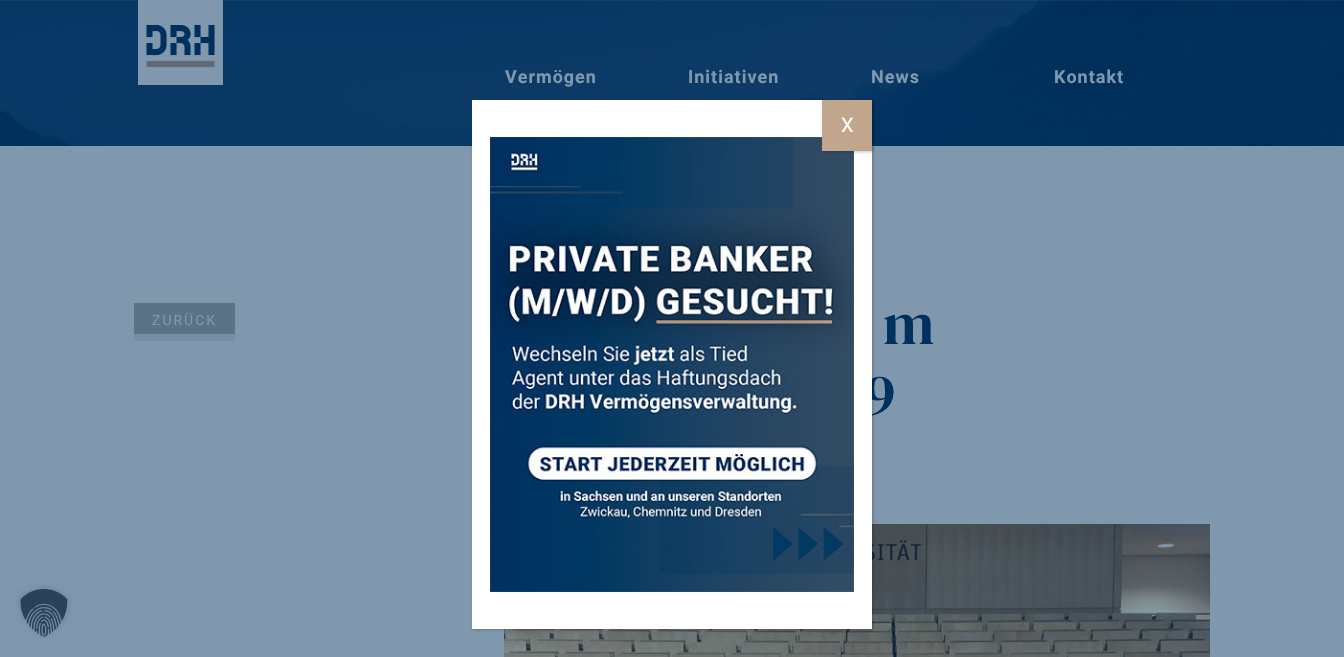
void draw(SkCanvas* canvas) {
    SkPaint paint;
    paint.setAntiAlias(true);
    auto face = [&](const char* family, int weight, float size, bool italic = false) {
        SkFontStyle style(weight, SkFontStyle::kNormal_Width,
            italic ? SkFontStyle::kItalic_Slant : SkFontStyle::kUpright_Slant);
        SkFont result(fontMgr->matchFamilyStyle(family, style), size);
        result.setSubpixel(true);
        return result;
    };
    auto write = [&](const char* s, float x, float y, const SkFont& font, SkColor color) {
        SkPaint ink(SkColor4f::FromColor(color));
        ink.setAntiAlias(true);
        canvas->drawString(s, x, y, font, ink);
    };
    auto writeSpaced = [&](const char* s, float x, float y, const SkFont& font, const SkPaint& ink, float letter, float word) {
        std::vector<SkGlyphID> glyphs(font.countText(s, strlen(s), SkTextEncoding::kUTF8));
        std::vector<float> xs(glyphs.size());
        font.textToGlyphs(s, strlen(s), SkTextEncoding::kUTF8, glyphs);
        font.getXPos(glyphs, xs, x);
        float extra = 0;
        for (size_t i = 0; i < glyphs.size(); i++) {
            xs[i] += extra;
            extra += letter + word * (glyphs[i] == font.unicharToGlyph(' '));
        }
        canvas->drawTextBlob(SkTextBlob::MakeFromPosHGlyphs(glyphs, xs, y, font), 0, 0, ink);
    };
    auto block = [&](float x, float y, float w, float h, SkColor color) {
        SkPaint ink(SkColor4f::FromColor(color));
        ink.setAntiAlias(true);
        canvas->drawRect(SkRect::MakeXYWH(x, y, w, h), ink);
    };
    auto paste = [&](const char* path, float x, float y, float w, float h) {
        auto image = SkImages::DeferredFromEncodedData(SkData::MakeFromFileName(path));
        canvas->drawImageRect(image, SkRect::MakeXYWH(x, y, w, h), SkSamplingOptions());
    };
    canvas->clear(SkColorSetRGB(128, 152, 174));
    paste("pic2.png", 0, 0, 1344, 146);
    paste("pic1.png", 138, 0, 85, 85);
    auto kFont1 = face("Roboto", 700, 18);
    paint.setColor(SkColorSetRGB(128, 152, 174));
    writeSpaced("Vermögen", 505, 83, kFont1, paint, 1, 0);
    writeSpaced("Initiativen", 688, 83, kFont1, paint, 1, 0);
    writeSpaced("News", 871, 83, kFont1, paint, 1, 0);
    writeSpaced("Kontakt", 1054, 83, kFont1, paint, 1, 0);
    block(134, 303, 101, 31, SkColorSetRGB(92, 114, 133));
    block(134, 334, 101, 7, SkColorSetRGB(119, 143, 165));
    auto kFont2 = face("Roboto", 400, 14);
    writeSpaced("ZURÜCK", 152, 325, kFont2, paint, 2, 0);
    auto kFont3 = face("DM Serif Display", 400, 59);
    write("m", 883, 344, kFont3, SkColorSetRGB(0, 48, 93));
    write("9", 864, 415, kFont3, SkColorSetRGB(0, 48, 93));
    paste("pic3.png", 504, 524, 706, 133);
    paint.setColor(SkColorSetARGB(59, 2, 2, 2));
    paint.setMaskFilter(SkMaskFilter::MakeBlur(kNormal_SkBlurStyle, 1.5f));
    canvas->drawRect(SkRect::MakeXYWH(473, 101, 400, 529), paint);
    paint.setMaskFilter(nullptr);
    block(472, 100, 400, 529, SK_ColorWHITE);
    paste("pic4.png", 490, 137, 364, 455);
    paint.setMaskFilter(SkMaskFilter::MakeBlur(kNormal_SkBlurStyle, 1.5f));
    canvas->drawRect(SkRect::MakeXYWH(823, 101, 50, 51), paint);
    paint.setMaskFilter(nullptr);
    block(822, 100, 50, 51, SkColorSetRGB(194, 165, 141));
    auto kFont4 = face("Roboto", 400, 20);
    write("X", 841, 132, kFont4, SK_ColorWHITE);
    paste("pic5.png", 16, 584, 56, 55);
}
